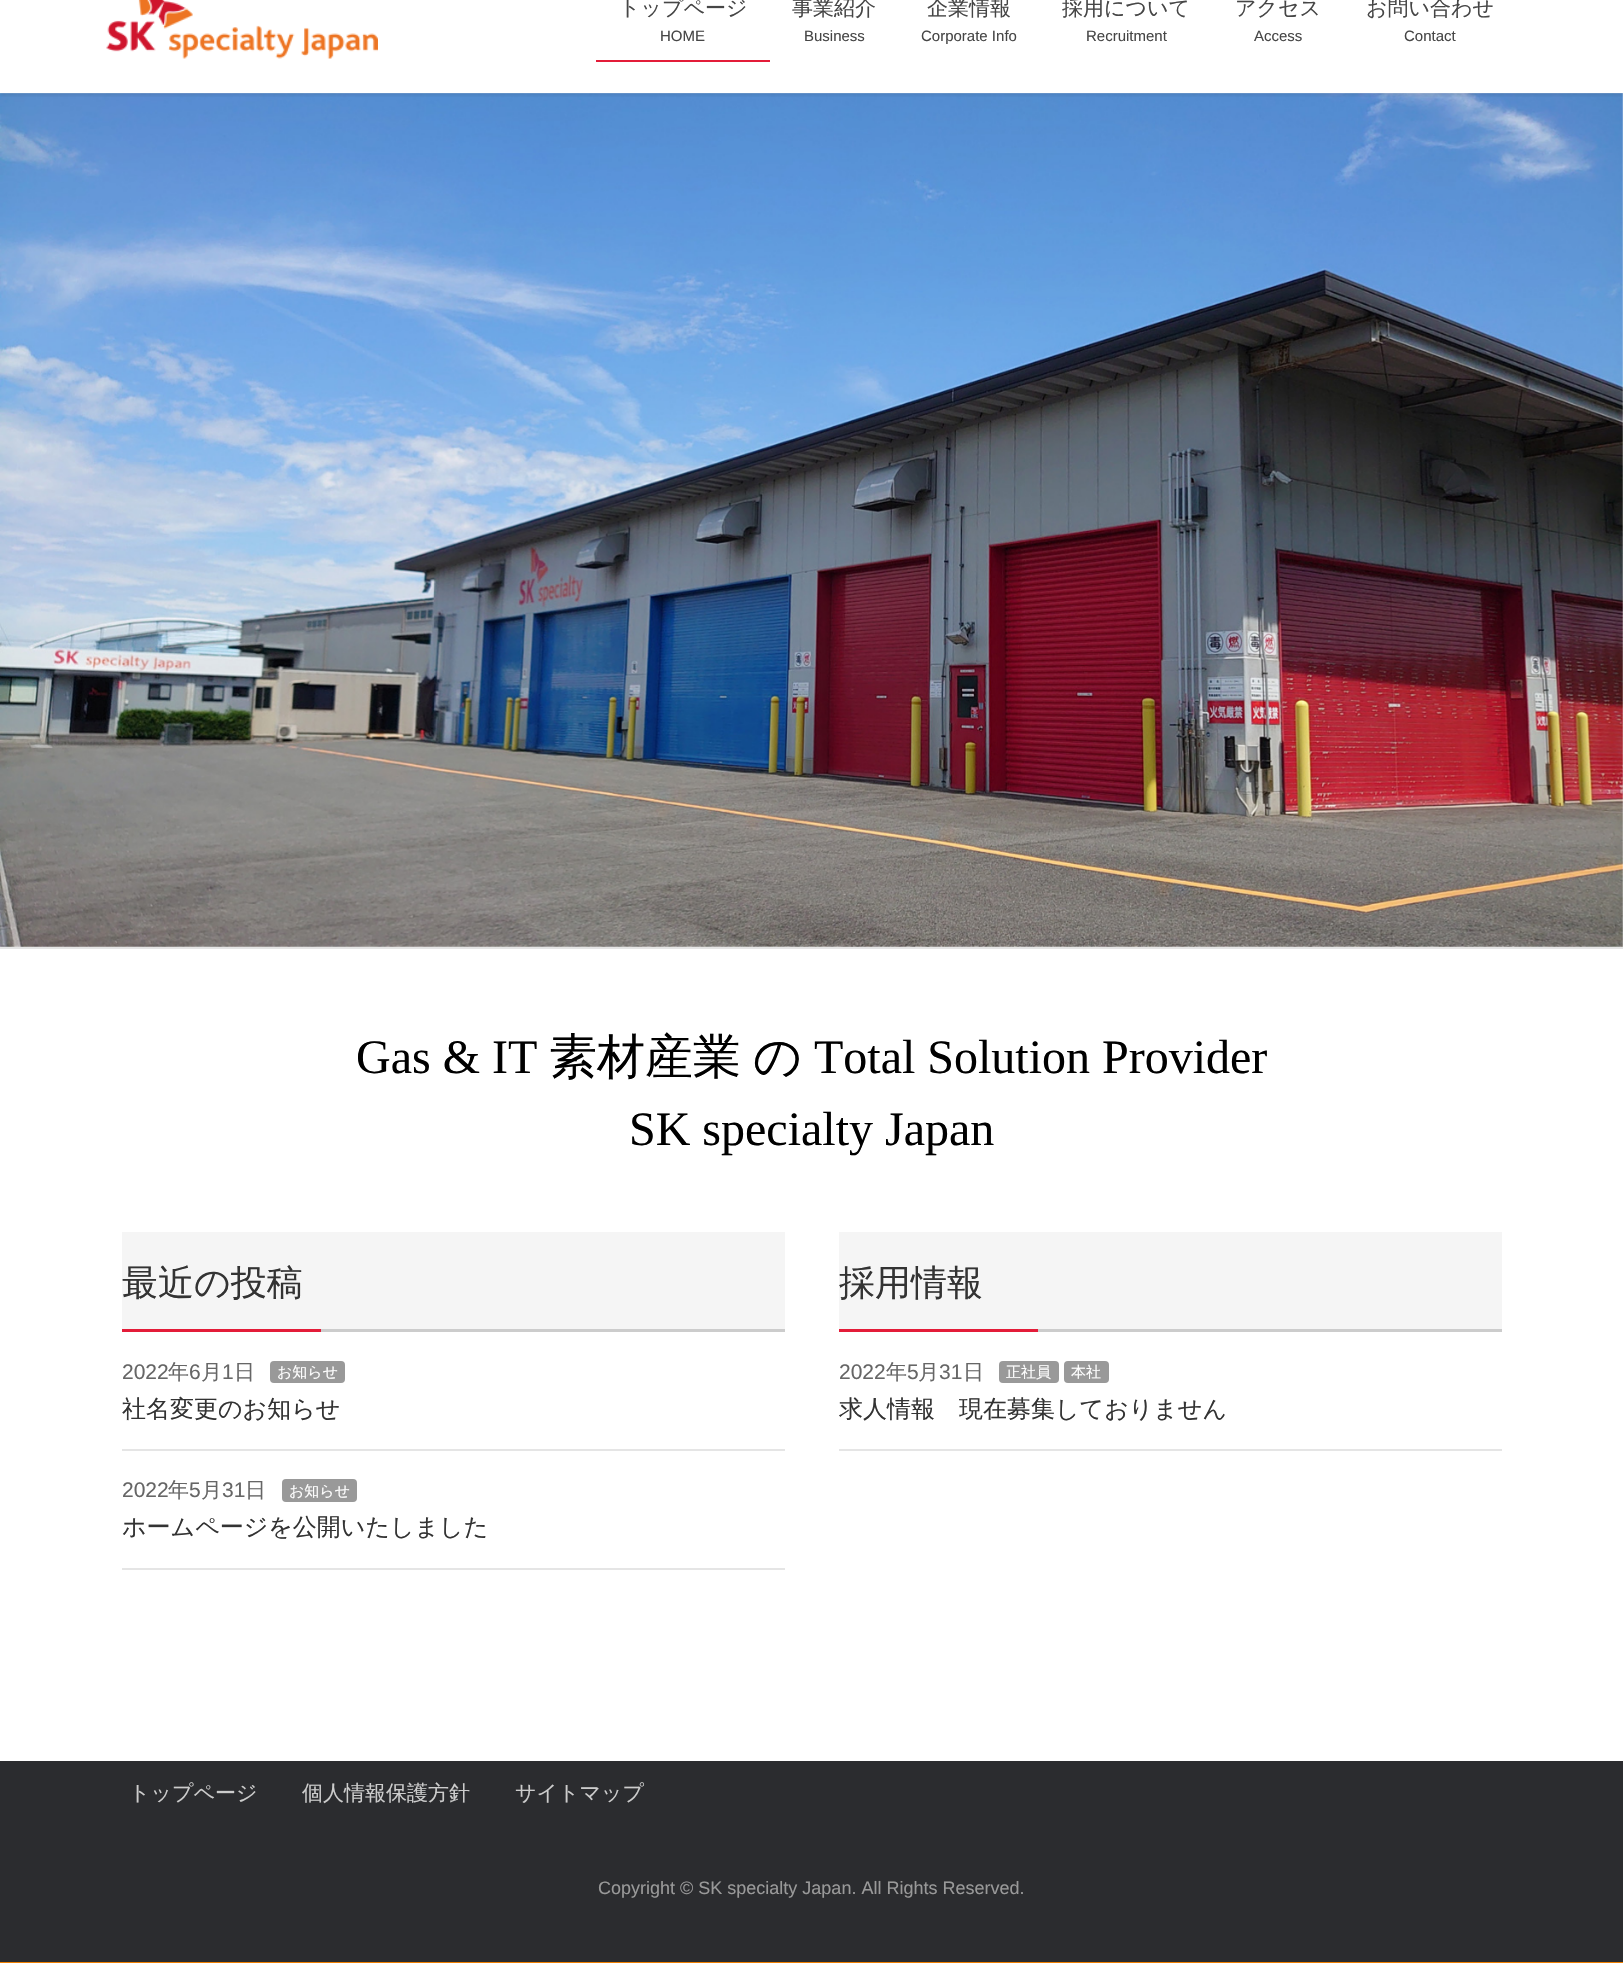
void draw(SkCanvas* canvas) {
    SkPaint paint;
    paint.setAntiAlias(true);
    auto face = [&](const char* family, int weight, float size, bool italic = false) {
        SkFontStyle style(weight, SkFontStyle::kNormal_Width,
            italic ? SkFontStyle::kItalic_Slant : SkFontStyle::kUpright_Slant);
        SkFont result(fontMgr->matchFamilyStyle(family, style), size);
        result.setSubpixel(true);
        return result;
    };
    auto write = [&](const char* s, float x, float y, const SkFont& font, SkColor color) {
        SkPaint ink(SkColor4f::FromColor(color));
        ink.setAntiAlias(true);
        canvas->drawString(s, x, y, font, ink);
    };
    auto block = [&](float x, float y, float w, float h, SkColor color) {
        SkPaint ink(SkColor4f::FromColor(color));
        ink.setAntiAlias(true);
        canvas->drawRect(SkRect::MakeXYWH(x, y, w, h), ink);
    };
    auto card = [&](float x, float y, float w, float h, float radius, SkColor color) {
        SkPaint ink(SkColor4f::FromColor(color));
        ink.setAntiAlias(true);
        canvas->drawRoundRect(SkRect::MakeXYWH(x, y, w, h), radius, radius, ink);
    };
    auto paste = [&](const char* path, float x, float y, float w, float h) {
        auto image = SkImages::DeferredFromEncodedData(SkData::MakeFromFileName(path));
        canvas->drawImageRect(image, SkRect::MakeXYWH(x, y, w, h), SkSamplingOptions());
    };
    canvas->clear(SK_ColorWHITE);
    paste("pic2.png", 0, 93, 1623, 854);
    canvas->save();
    canvas->clipRect(SkRect::MakeXYWH(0, 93, 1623, 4));
    paint.setColor(SkColorSetARGB(26, 0, 0, 0));
    paint.setMaskFilter(SkMaskFilter::MakeBlur(kNormal_SkBlurStyle, 2));
    canvas->drawRect(SkRect::MakeXYWH(0, -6, 1623, 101), paint);
    paint.setMaskFilter(nullptr);
    canvas->restore();
    paste("pic1.png", 106, 0, 272, 59);
    auto kFont1 = face("WenQuanYi Zen Hei", 500, 21);
    write("トップページ", 619, 15, kFont1, SkColorSetRGB(70, 70, 70));
    auto kFont2 = face("Liberation Sans", 400, 15);
    write("HOME", 660, 41, kFont2, SkColorSetRGB(70, 70, 70));
    block(596, 60, 174, 2, SkColorSetRGB(227, 28, 57));
    write("事業紹介", 792, 15, kFont1, SkColorSetRGB(70, 70, 70));
    write("Business", 804, 41, kFont2, SkColorSetRGB(70, 70, 70));
    write("企業情報", 927, 15, kFont1, SkColorSetRGB(70, 70, 70));
    write("Corporate Info", 921, 41, kFont2, SkColorSetRGB(70, 70, 70));
    write("採用について", 1062, 15, kFont1, SkColorSetRGB(70, 70, 70));
    write("Recruitment", 1086, 41, kFont2, SkColorSetRGB(70, 70, 70));
    write("アクセス", 1235, 15, kFont1, SkColorSetRGB(70, 70, 70));
    write("Access", 1254, 41, kFont2, SkColorSetRGB(70, 70, 70));
    write("お問い合わせ", 1366, 15, kFont1, SkColorSetRGB(70, 70, 70));
    write("Contact", 1404, 41, kFont2, SkColorSetRGB(70, 70, 70));
    block(0, 947, 1623, 2, SkColorSetRGB(229, 229, 229));
    auto kFont3 = face("Liberation Serif", 400, 48);
    write("Gas & IT", 356, 1073, kFont3, SK_ColorBLACK);
    auto kFont4 = face("WenQuanYi Zen Hei", 500, 48);
    write("素材産業", 549, 1073, kFont4, SK_ColorBLACK);
    write("の", 753, 1073, kFont4, SK_ColorBLACK);
    write("Total Solution Provider", 814, 1073, kFont3, SK_ColorBLACK);
    write("SK specialty Japan", 629, 1145, kFont3, SK_ColorBLACK);
    block(122, 1232, 663, 97, SkColorSetRGB(245, 245, 245));
    block(321, 1329, 464, 3, SkColorSetRGB(204, 204, 204));
    auto kFont5 = face("WenQuanYi Zen Hei", 500, 36);
    write("最近の投稿", 122, 1295, kFont5, SkColorSetRGB(51, 51, 51));
    block(122, 1329, 199, 3, SkColorSetRGB(227, 28, 57));
    block(122, 1449, 663, 2, SkColorSetRGB(229, 229, 229));
    auto kFont6 = face("Liberation Sans", 400, 21);
    write("2022", 122, 1379, kFont6, SkColorSetRGB(102, 102, 102));
    write("年", 168, 1379, kFont1, SkColorSetRGB(102, 102, 102));
    write("6", 189, 1379, kFont6, SkColorSetRGB(102, 102, 102));
    write("月", 201, 1379, kFont1, SkColorSetRGB(102, 102, 102));
    write("1", 222, 1379, kFont6, SkColorSetRGB(102, 102, 102));
    write("日", 234, 1379, kFont1, SkColorSetRGB(102, 102, 102));
    card(270, 1361, 75, 22, 4, SkColorSetRGB(153, 153, 153));
    auto kFont7 = face("WenQuanYi Zen Hei", 500, 15);
    write("お知らせ", 277, 1377, kFont7, SK_ColorWHITE);
    auto kFont8 = face("WenQuanYi Zen Hei", 500, 24);
    write("社名変更のお知らせ", 122, 1417, kFont8, SkColorSetRGB(51, 51, 51));
    block(122, 1568, 663, 2, SkColorSetRGB(229, 229, 229));
    write("2022", 122, 1497, kFont6, SkColorSetRGB(102, 102, 102));
    write("年", 168, 1497, kFont1, SkColorSetRGB(102, 102, 102));
    write("5", 189, 1497, kFont6, SkColorSetRGB(102, 102, 102));
    write("月", 201, 1497, kFont1, SkColorSetRGB(102, 102, 102));
    write("31", 222, 1497, kFont6, SkColorSetRGB(102, 102, 102));
    write("日", 245, 1497, kFont1, SkColorSetRGB(102, 102, 102));
    card(282, 1479, 75, 23, 4, SkColorSetRGB(153, 153, 153));
    write("お知らせ", 289, 1496, kFont7, SK_ColorWHITE);
    write("ホームページを公開いたしました", 122, 1535, kFont8, SkColorSetRGB(51, 51, 51));
    block(839, 1232, 663, 97, SkColorSetRGB(245, 245, 245));
    block(1038, 1329, 464, 3, SkColorSetRGB(204, 204, 204));
    write("採用情報", 839, 1295, kFont5, SkColorSetRGB(51, 51, 51));
    block(839, 1329, 199, 3, SkColorSetRGB(227, 28, 57));
    block(839, 1449, 663, 2, SkColorSetRGB(229, 229, 229));
    write("2022", 839, 1379, kFont6, SkColorSetRGB(102, 102, 102));
    write("年", 886, 1379, kFont1, SkColorSetRGB(102, 102, 102));
    write("5", 907, 1379, kFont6, SkColorSetRGB(102, 102, 102));
    write("月", 918, 1379, kFont1, SkColorSetRGB(102, 102, 102));
    write("31", 939, 1379, kFont6, SkColorSetRGB(102, 102, 102));
    write("日", 963, 1379, kFont1, SkColorSetRGB(102, 102, 102));
    card(999, 1361, 60, 22, 4, SkColorSetRGB(153, 153, 153));
    write("正社員", 1006, 1377, kFont7, SK_ColorWHITE);
    card(1064, 1361, 45, 22, 4, SkColorSetRGB(153, 153, 153));
    write("本社", 1071, 1377, kFont7, SK_ColorWHITE);
    write("求人情報　現在募集しておりません", 839, 1417, kFont8, SkColorSetRGB(51, 51, 51));
    block(0, 1761, 1623, 201, SkColorSetRGB(43, 44, 47));
    block(0, 1962, 1623, 1, SkColorSetRGB(239, 127, 1));
    write("トップページ", 129, 1800, kFont1, SkColorSetRGB(204, 204, 204));
    write("個人情報保護方針", 302, 1800, kFont1, SkColorSetRGB(204, 204, 204));
    write("サイトマップ", 515, 1800, kFont1, SkColorSetRGB(204, 204, 204));
    auto kFont9 = face("Liberation Sans", 400, 18);
    write("Copyright © SK specialty Japan. All Rights Reserved.", 598, 1894, kFont9, SkColorSetRGB(153, 153, 153));
}
